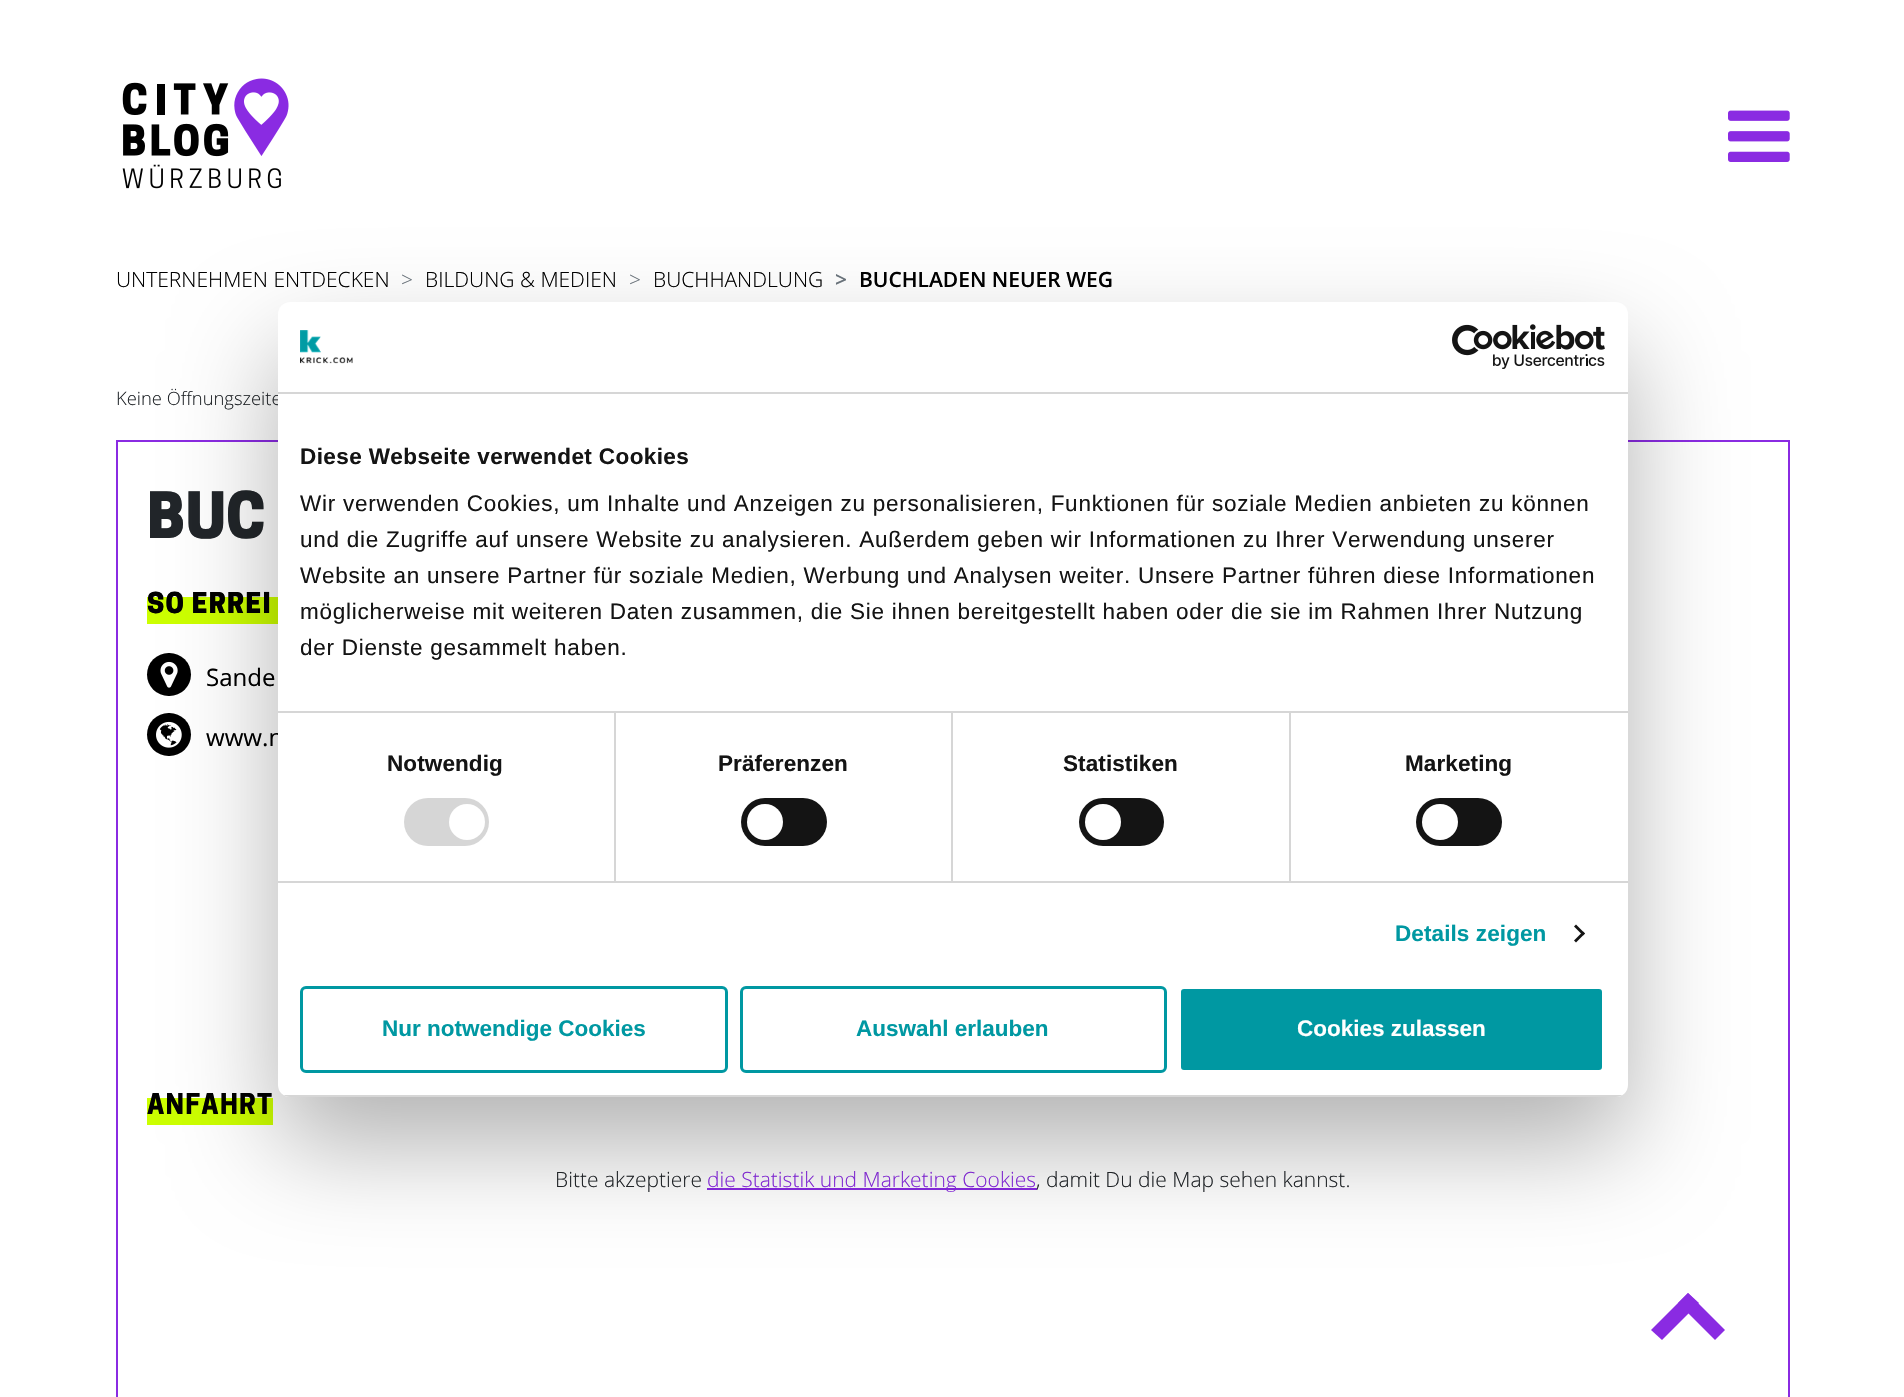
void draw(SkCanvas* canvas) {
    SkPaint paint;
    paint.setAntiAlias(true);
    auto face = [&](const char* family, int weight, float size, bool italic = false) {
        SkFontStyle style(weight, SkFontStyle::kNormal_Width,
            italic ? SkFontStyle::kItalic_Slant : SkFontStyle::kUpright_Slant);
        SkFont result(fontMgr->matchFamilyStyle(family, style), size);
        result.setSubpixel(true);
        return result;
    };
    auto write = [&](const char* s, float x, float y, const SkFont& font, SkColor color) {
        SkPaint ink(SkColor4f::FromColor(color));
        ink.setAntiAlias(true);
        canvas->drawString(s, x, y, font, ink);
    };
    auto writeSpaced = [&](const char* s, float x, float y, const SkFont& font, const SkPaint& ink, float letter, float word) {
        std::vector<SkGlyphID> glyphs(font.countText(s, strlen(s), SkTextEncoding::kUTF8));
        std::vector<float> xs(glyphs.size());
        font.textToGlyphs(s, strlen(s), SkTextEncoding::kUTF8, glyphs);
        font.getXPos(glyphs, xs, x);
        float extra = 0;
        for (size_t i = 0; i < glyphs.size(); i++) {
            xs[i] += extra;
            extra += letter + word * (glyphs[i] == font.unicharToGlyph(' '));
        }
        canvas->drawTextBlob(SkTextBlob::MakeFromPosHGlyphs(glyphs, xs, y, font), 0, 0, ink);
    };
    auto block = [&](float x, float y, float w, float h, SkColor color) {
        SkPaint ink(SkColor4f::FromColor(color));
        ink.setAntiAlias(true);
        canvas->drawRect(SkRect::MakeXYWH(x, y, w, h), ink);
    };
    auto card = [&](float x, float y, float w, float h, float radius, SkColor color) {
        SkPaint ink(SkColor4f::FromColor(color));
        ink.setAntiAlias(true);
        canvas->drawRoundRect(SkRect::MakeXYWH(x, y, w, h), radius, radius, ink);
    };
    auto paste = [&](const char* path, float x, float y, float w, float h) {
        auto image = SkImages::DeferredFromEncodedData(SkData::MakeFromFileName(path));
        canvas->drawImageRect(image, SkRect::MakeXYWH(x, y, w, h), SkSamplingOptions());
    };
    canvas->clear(SK_ColorWHITE);
    paste("pic1.png", 122, 78, 167, 111);
    paste("pic2.png", 1728, 110, 62, 52);
    auto kFont1 = face("Open Sans", 300, 21);
    write("UNTERNEHMEN ENTDECKEN", 116, 287, kFont1, SK_ColorBLACK);
    write(">", 401, 287, kFont1, SkColorSetRGB(108, 117, 125));
    write("BILDUNG & MEDIEN", 425, 287, kFont1, SK_ColorBLACK);
    write(">", 629, 287, kFont1, SkColorSetRGB(108, 117, 125));
    write("BUCHHANDLUNG", 653, 287, kFont1, SK_ColorBLACK);
    auto kFont2 = face("Open Sans", 600, 21);
    write(">", 835, 287, kFont2, SkColorSetRGB(108, 117, 125));
    write("BUCHLADEN NEUER WEG", 859, 287, kFont2, SK_ColorBLACK);
    auto kFont3 = face("Open Sans", 300, 18.4f);
    write("Keine Öffnungszeite", 116, 405, kFont3, SkColorSetRGB(33, 37, 41));
    paint.setStyle(SkPaint::kStroke_Style);
    paint.setStrokeWidth(2);
    paint.setColor(SkColorSetRGB(138, 43, 226));
    canvas->drawRect(SkRect::MakeXYWH(117, 441, 1672, 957), paint);
    auto kFont4 = face("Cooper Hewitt", 900, 60);
    write("BUC", 147, 538, kFont4, SkColorSetRGB(33, 37, 41));
    block(147, 597, 131, 27, SkColorSetRGB(204, 255, 0));
    auto kFont5 = face("Cooper Hewitt", 900, 27);
    paint.setStyle(SkPaint::kFill_Style);
    paint.setColor(SK_ColorBLACK);
    writeSpaced("SO ERREI", 147, 613, kFont5, paint, 1.25f, 0);
    card(147, 653, 44, 43, 21.5f, SK_ColorBLACK);
    paste("pic3.png", 160, 661, 18, 27);
    auto kFont6 = face("Open Sans", 400, 24);
    write("Sande", 206, 686, kFont6, SK_ColorBLACK);
    card(147, 713, 44, 43, 21.5f, SK_ColorBLACK);
    paste("pic4.png", 156, 721, 26, 27);
    write("www.n", 206, 746, kFont6, SK_ColorBLACK);
    block(147, 1098, 126, 27, SkColorSetRGB(204, 255, 0));
    auto kFont7 = face("Cooper Hewitt", 700, 27);
    writeSpaced("ANFAHRT", 147, 1114, kFont7, paint, 1.25f, 0);
    write("Bitte akzeptiere", 555, 1187, kFont1, SkColorSetRGB(33, 37, 41));
    block(707, 1188, 330, 2, SkColorSetRGB(138, 43, 226));
    write("die Statistik und Marketing Cookies", 707, 1187, kFont1, SkColorSetRGB(138, 43, 226));
    write(", damit Du die Map sehen kannst.", 1036, 1187, kFont1, SkColorSetRGB(33, 37, 41));
    paint.setColor(SkColorSetRGB(138, 43, 226));
    canvas->drawPath(SkPathBuilder().moveTo(1688, 1293).lineTo(1725, 1330).lineTo(1715, 1340).lineTo(1678, 1303).close().detach(), paint);
    canvas->drawPath(SkPathBuilder().moveTo(1688, 1293).lineTo(1699, 1303).lineTo(1662, 1340).lineTo(1651, 1330).close().detach(), paint);
    paint.setColor(SkColorSetARGB(77, 0, 0, 0));
    paint.setMaskFilter(SkMaskFilter::MakeBlur(kNormal_SkBlurStyle, 51));
    canvas->drawRoundRect(SkRect::MakeXYWH(278, 350, 1350, 795), 12, 12, paint);
    paint.setMaskFilter(nullptr);
    card(278, 302, 1350, 795, 12, SK_ColorWHITE);
    block(278, 392, 1350, 2, SkColorSetRGB(214, 214, 214));
    paste("pic5.png", 300, 330, 53, 34);
    paste("pic6.png", 1452, 324, 153, 45);
    block(278, 711, 1350, 2, SkColorSetRGB(214, 214, 214));
    auto kFont8 = face("Liberation Sans", 700, 22.5f);
    paint.setColor(SkColorSetRGB(20, 20, 20));
    writeSpaced("Diese Webseite verwendet Cookies", 300, 464, kFont8, paint, 0.4f, 0);
    auto kFont9 = face("Liberation Sans", 400, 22.5f);
    writeSpaced("Wir verwenden Cookies, um Inhalte und Anzeigen zu personalisieren, Funktionen für soziale Medien anbieten zu können", 300, 511, kFont9, paint, 0.75f, 0);
    writeSpaced("und die Zugriffe auf unsere Website zu analysieren. Außerdem geben wir Informationen zu Ihrer Verwendung unserer", 300, 547, kFont9, paint, 0.75f, 0);
    writeSpaced("Website an unsere Partner für soziale Medien, Werbung und Analysen weiter. Unsere Partner führen diese Informationen", 300, 583, kFont9, paint, 0.75f, 0);
    writeSpaced("möglicherweise mit weiteren Daten zusammen, die Sie ihnen bereitgestellt haben oder die sie im Rahmen Ihrer Nutzung", 300, 619, kFont9, paint, 0.75f, 0);
    writeSpaced("der Dienste gesammelt haben.", 300, 655, kFont9, paint, 0.75f, 0);
    block(278, 881, 1350, 2, SkColorSetRGB(214, 214, 214));
    block(614, 713, 2, 168, SkColorSetRGB(214, 214, 214));
    writeSpaced("Notwendig", 387, 771, kFont8, paint, 0.1f, 0);
    card(404, 798, 85, 48, 24, SkColorSetRGB(214, 214, 214));
    paint.setColor(SK_ColorWHITE);
    canvas->drawCircle(467, 822, 18, paint);
    block(951, 713, 2, 168, SkColorSetRGB(214, 214, 214));
    paint.setColor(SkColorSetRGB(20, 20, 20));
    writeSpaced("Präferenzen", 718, 771, kFont8, paint, 0.1f, 0);
    card(741, 798, 86, 48, 24, SkColorSetRGB(20, 20, 20));
    paint.setColor(SK_ColorWHITE);
    canvas->drawCircle(765, 822, 18, paint);
    block(1289, 713, 2, 168, SkColorSetRGB(214, 214, 214));
    paint.setColor(SkColorSetRGB(20, 20, 20));
    writeSpaced("Statistiken", 1063, 771, kFont8, paint, 0.1f, 0);
    card(1079, 798, 85, 48, 24, SkColorSetRGB(20, 20, 20));
    paint.setColor(SK_ColorWHITE);
    canvas->drawCircle(1103, 822, 18, paint);
    paint.setColor(SkColorSetRGB(20, 20, 20));
    writeSpaced("Marketing", 1405, 771, kFont8, paint, 0.1f, 0);
    card(1416, 798, 86, 48, 24, SkColorSetRGB(20, 20, 20));
    paint.setColor(SK_ColorWHITE);
    canvas->drawCircle(1440, 822, 18, paint);
    paint.setColor(SkColorSetRGB(0, 152, 162));
    writeSpaced("Details zeigen", 1395, 941, kFont8, paint, 0.1f, 0);
    paint.setColor(SkColorSetRGB(20, 20, 20));
    canvas->drawPath(SkPathBuilder().moveTo(1576, 924.5f).lineTo(1585, 933.5f).lineTo(1583, 935.5f).lineTo(1574, 926.5f).close().detach(), paint);
    canvas->drawPath(SkPathBuilder().moveTo(1583, 931.5f).lineTo(1585, 933.5f).lineTo(1576, 942.5f).lineTo(1574, 940.5f).close().detach(), paint);
    canvas->save();
    canvas->clipPath(SkPathBuilder().moveTo(290, 302).lineTo(1616, 302).cubicTo(1622.5f, 302, 1628, 307.5f, 1628, 314).lineTo(1628, 1085).cubicTo(1628, 1091.5f, 1622.5f, 1097, 1616, 1097).lineTo(290, 1097).cubicTo(283.5f, 1097, 278, 1091.5f, 278, 1085).lineTo(278, 314).cubicTo(278, 307.5f, 283.5f, 302, 290, 302).close().detach(), true);
    block(278, 1095, 1350, 2, SkColorSetRGB(214, 214, 214));
    canvas->restore();
    paint.setStyle(SkPaint::kStroke_Style);
    paint.setStrokeWidth(3);
    paint.setColor(SkColorSetRGB(0, 152, 162));
    canvas->drawRoundRect(SkRect::MakeXYWH(301.5f, 987.5f, 425, 84), 4.5f, 4.5f, paint);
    write("Nur notwendige Cookies", 382, 1036, kFont8, SkColorSetRGB(0, 152, 162));
    canvas->drawRoundRect(SkRect::MakeXYWH(741.5f, 987.5f, 424, 84), 4.5f, 4.5f, paint);
    write("Auswahl erlauben", 856, 1036, kFont8, SkColorSetRGB(0, 152, 162));
    paint.setStyle(SkPaint::kFill_Style);
    canvas->drawRoundRect(SkRect::MakeXYWH(1179.5f, 987.5f, 424, 84), 4.5f, 4.5f, paint);
    paint.setStyle(SkPaint::kStroke_Style);
    paint.setColor(SK_ColorWHITE);
    canvas->drawRoundRect(SkRect::MakeXYWH(1179.5f, 987.5f, 424, 84), 4.5f, 4.5f, paint);
    write("Cookies zulassen", 1297, 1036, kFont8, SK_ColorWHITE);
}
